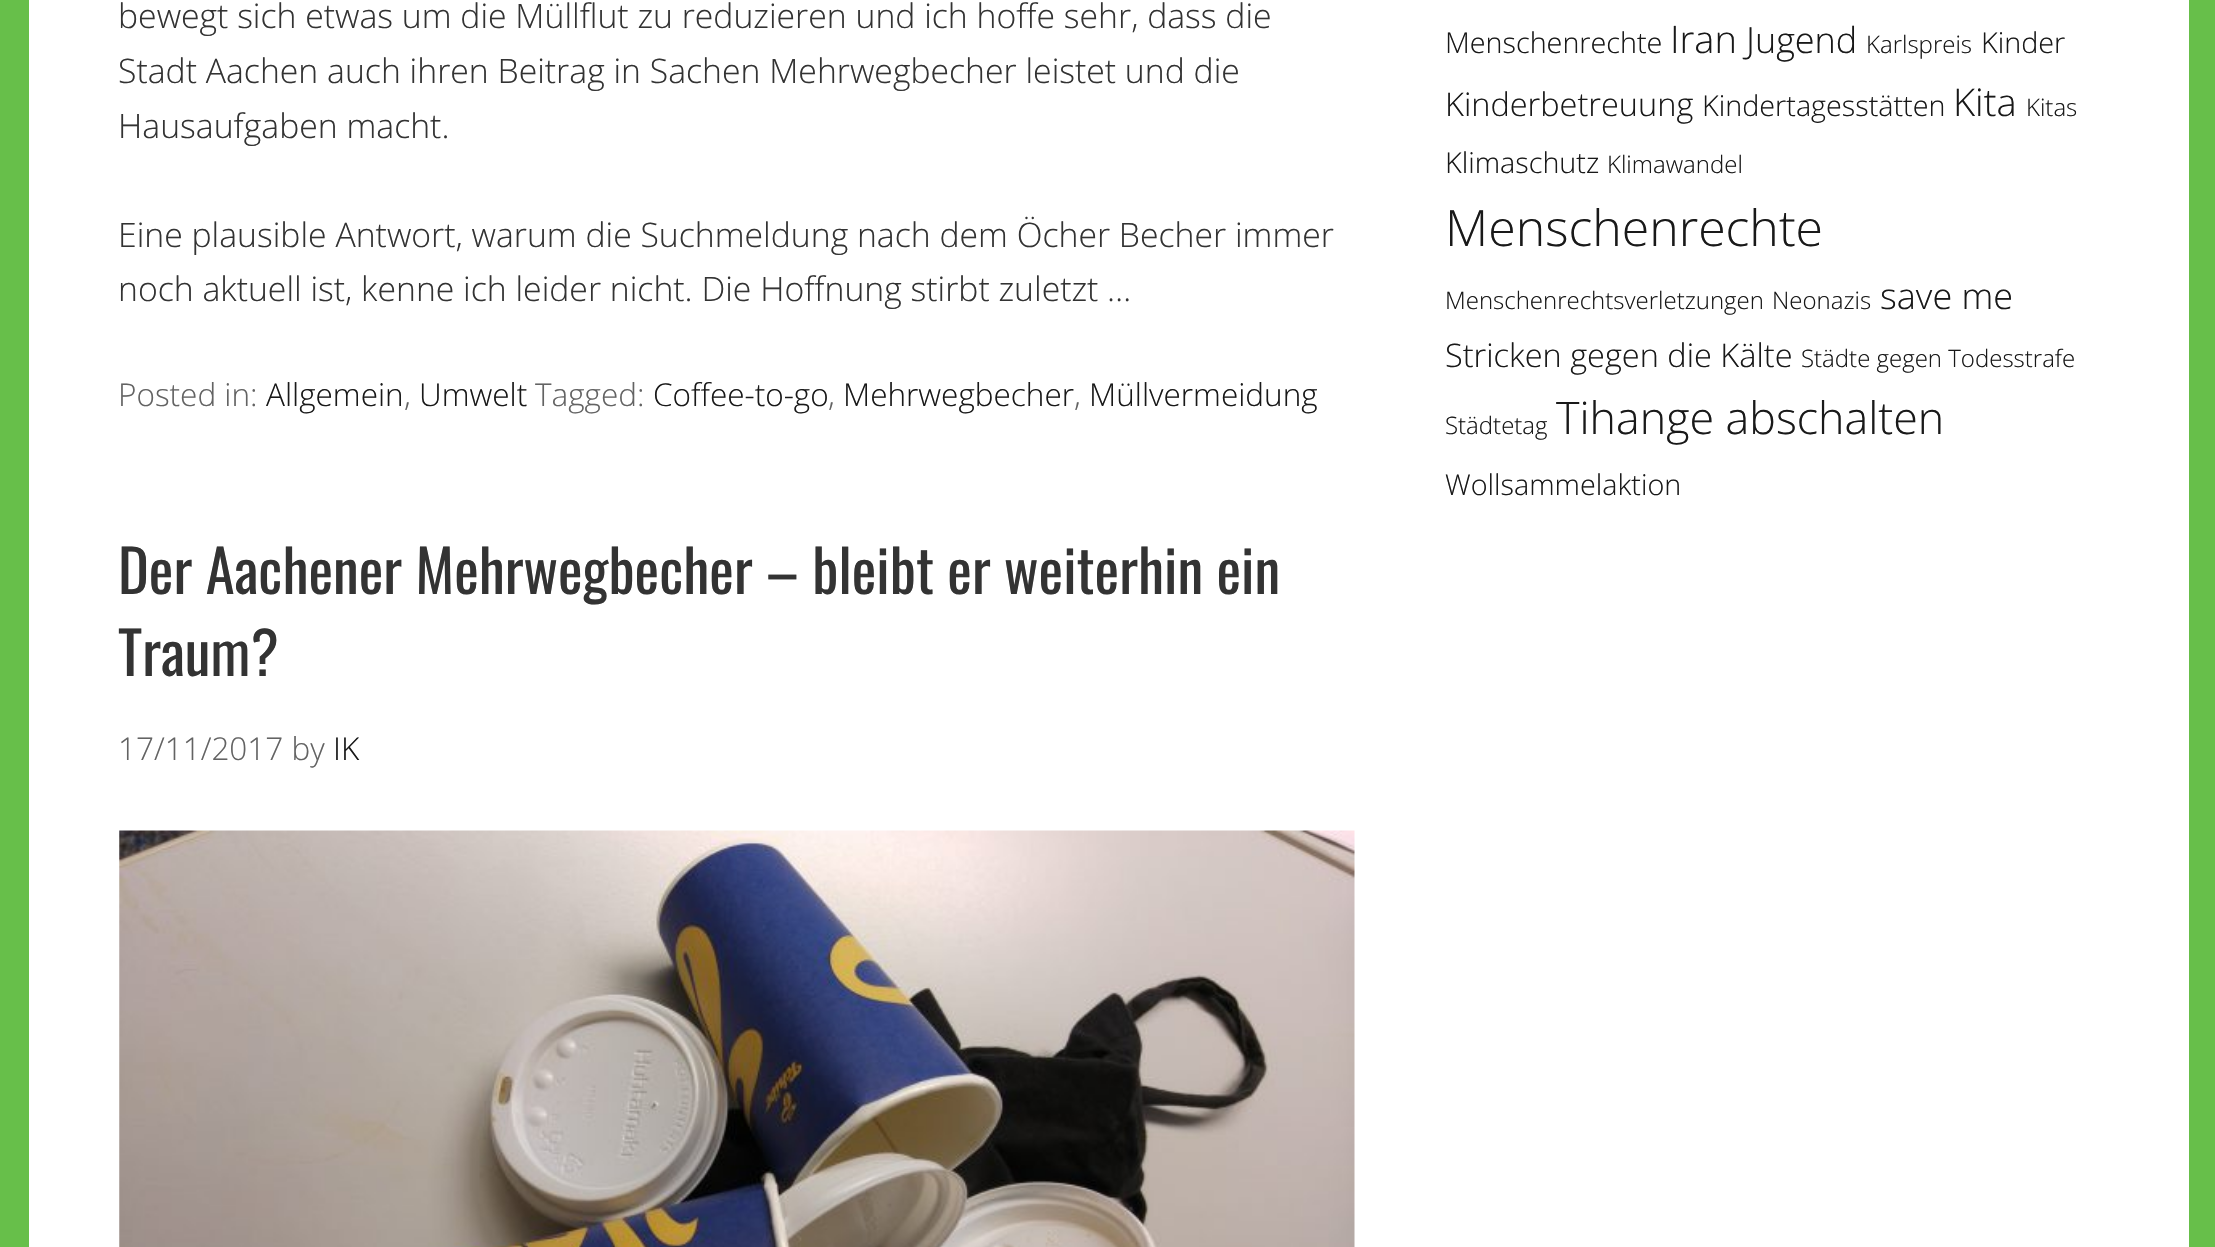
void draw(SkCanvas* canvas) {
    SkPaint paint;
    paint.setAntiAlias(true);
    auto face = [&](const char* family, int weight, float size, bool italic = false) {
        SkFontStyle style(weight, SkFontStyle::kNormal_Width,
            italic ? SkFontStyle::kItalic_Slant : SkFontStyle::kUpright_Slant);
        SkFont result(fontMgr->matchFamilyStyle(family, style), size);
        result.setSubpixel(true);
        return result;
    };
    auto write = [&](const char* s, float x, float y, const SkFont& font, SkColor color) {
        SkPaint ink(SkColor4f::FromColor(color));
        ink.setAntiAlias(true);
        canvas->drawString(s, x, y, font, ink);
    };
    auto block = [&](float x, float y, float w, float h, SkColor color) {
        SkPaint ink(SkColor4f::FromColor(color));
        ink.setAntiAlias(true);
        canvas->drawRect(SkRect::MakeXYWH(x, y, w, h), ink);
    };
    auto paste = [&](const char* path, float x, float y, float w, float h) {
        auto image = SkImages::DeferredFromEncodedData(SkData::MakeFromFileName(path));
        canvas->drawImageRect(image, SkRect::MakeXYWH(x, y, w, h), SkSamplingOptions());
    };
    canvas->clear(SkColorSetRGB(103, 191, 74));
    block(29, 0, 2160, 1247, SK_ColorWHITE);
    auto kFont1 = face("Open Sans", 300, 33.75f);
    write("bewegt sich etwas um die Müllflut zu reduzieren und ich hoffe sehr, dass die", 118, 28, kFont1, SkColorSetRGB(51, 51, 51));
    write("Stadt Aachen auch ihren Beitrag in Sachen Mehrwegbecher leistet und die", 118, 83, kFont1, SkColorSetRGB(51, 51, 51));
    write("Hausaufgaben macht.", 118, 138, kFont1, SkColorSetRGB(51, 51, 51));
    write("Eine plausible Antwort, warum die Suchmeldung nach dem Öcher Becher immer", 118, 247, kFont1, SkColorSetRGB(51, 51, 51));
    write("noch aktuell ist, kenne ich leider nicht. Die Hoffnung stirbt zuletzt …", 118, 301, kFont1, SkColorSetRGB(51, 51, 51));
    auto kFont2 = face("Open Sans", 300, 31.5f);
    write("Posted in:", 118, 406, kFont2, SkColorSetRGB(99, 99, 99));
    write("Allgemein", 266, 406, kFont2, SkColorSetRGB(25, 25, 25));
    write(",", 404, 406, kFont2, SkColorSetRGB(99, 99, 99));
    write("Umwelt", 419, 406, kFont2, SkColorSetRGB(25, 25, 25));
    write("Tagged:", 535, 406, kFont2, SkColorSetRGB(99, 99, 99));
    write("Coffee-to-go", 653, 406, kFont2, SkColorSetRGB(25, 25, 25));
    write(",", 828, 406, kFont2, SkColorSetRGB(99, 99, 99));
    write("Mehrwegbecher", 843, 406, kFont2, SkColorSetRGB(25, 25, 25));
    write(",", 1074, 406, kFont2, SkColorSetRGB(99, 99, 99));
    write("Müllvermeidung", 1089, 406, kFont2, SkColorSetRGB(25, 25, 25));
    auto kFont3 = face("Oswald", 400, 58.5f);
    write("Der Aachener Mehrwegbecher – bleibt er weiterhin ein", 118, 594, kFont3, SkColorSetRGB(51, 51, 51));
    write("Traum?", 118, 676, kFont3, SkColorSetRGB(51, 51, 51));
    write("17/11/2017 by", 118, 760, kFont2, SkColorSetRGB(99, 99, 99));
    write("IK", 333, 760, kFont2, SkColorSetRGB(25, 25, 25));
    paste("pic1.png", 119, 830, 1236, 417);
    auto kFont4 = face("Open Sans", 300, 28.75f);
    write("Menschenrechte", 1445, 53, kFont4, SkColorSetRGB(25, 25, 25));
    auto kFont5 = face("Open Sans", 300, 38);
    write("Iran", 1670, 53, kFont5, SkColorSetRGB(25, 25, 25));
    auto kFont6 = face("Open Sans", 300, 36);
    write("Jugend", 1746, 53, kFont6, SkColorSetRGB(25, 25, 25));
    auto kFont7 = face("Open Sans", 300, 24);
    write("Karlspreis", 1866, 53, kFont7, SkColorSetRGB(25, 25, 25));
    write("Kinder", 1981, 53, kFont4, SkColorSetRGB(25, 25, 25));
    auto kFont8 = face("Open Sans", 300, 32.5f);
    write("Kinderbetreuung", 1445, 116, kFont8, SkColorSetRGB(25, 25, 25));
    write("Kindertagesstätten", 1702, 116, kFont4, SkColorSetRGB(25, 25, 25));
    write("Kita", 1953, 116, kFont5, SkColorSetRGB(25, 25, 25));
    write("Kitas", 2026, 116, kFont7, SkColorSetRGB(25, 25, 25));
    write("Klimaschutz", 1445, 173, kFont4, SkColorSetRGB(25, 25, 25));
    write("Klimawandel", 1607, 173, kFont7, SkColorSetRGB(25, 25, 25));
    auto kFont9 = face("Open Sans", 300, 50);
    write("Menschenrechte", 1445, 246, kFont9, SkColorSetRGB(25, 25, 25));
    write("Menschenrechtsverletzungen", 1445, 309, kFont7, SkColorSetRGB(25, 25, 25));
    write("Neonazis", 1772, 309, kFont7, SkColorSetRGB(25, 25, 25));
    write("save me", 1880, 309, kFont6, SkColorSetRGB(25, 25, 25));
    write("Stricken gegen die Kälte", 1445, 367, kFont8, SkColorSetRGB(25, 25, 25));
    write("Städte gegen Todesstrafe", 1801, 367, kFont7, SkColorSetRGB(25, 25, 25));
    write("Städtetag", 1445, 434, kFont7, SkColorSetRGB(25, 25, 25));
    auto kFont10 = face("Open Sans", 300, 44.75f);
    write("Tihange abschalten", 1556, 434, kFont10, SkColorSetRGB(25, 25, 25));
    write("Wollsammelaktion", 1445, 495, kFont4, SkColorSetRGB(25, 25, 25));
}
